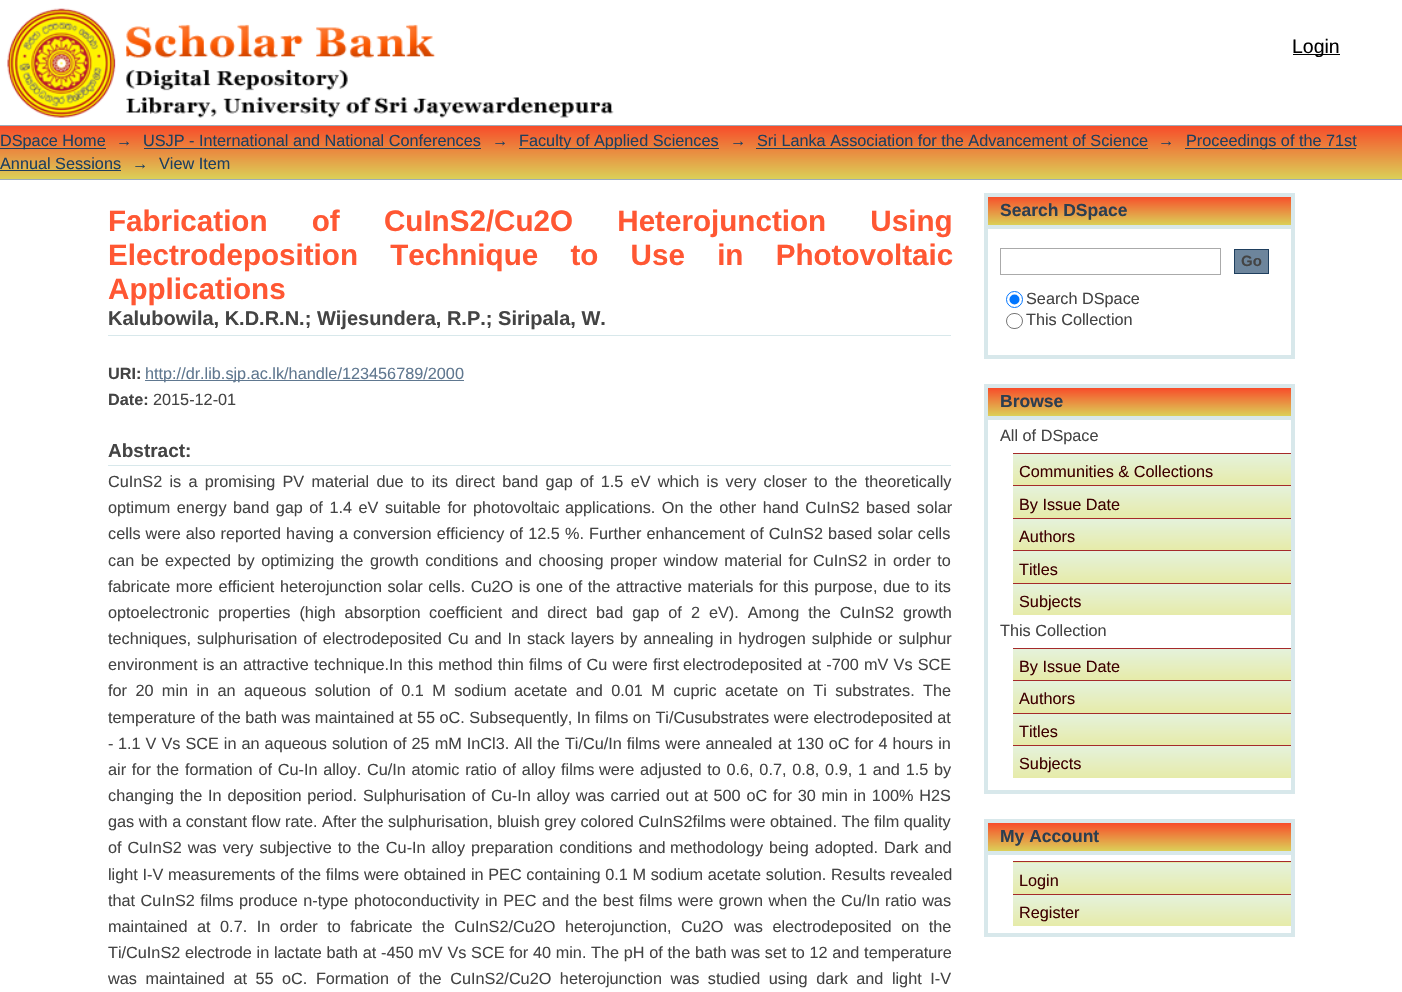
void draw(SkCanvas* canvas) {
    SkPaint paint;
    paint.setAntiAlias(true);
    auto face = [&](const char* family, int weight, float size, bool italic = false) {
        SkFontStyle style(weight, SkFontStyle::kNormal_Width,
            italic ? SkFontStyle::kItalic_Slant : SkFontStyle::kUpright_Slant);
        SkFont result(fontMgr->matchFamilyStyle(family, style), size);
        result.setSubpixel(true);
        return result;
    };
    auto write = [&](const char* s, float x, float y, const SkFont& font, SkColor color) {
        SkPaint ink(SkColor4f::FromColor(color));
        ink.setAntiAlias(true);
        canvas->drawString(s, x, y, font, ink);
    };
    auto writeSpaced = [&](const char* s, float x, float y, const SkFont& font, const SkPaint& ink, float letter, float word) {
        std::vector<SkGlyphID> glyphs(font.countText(s, strlen(s), SkTextEncoding::kUTF8));
        std::vector<float> xs(glyphs.size());
        font.textToGlyphs(s, strlen(s), SkTextEncoding::kUTF8, glyphs);
        font.getXPos(glyphs, xs, x);
        float extra = 0;
        for (size_t i = 0; i < glyphs.size(); i++) {
            xs[i] += extra;
            extra += letter + word * (glyphs[i] == font.unicharToGlyph(' '));
        }
        canvas->drawTextBlob(SkTextBlob::MakeFromPosHGlyphs(glyphs, xs, y, font), 0, 0, ink);
    };
    auto block = [&](float x, float y, float w, float h, SkColor color) {
        SkPaint ink(SkColor4f::FromColor(color));
        ink.setAntiAlias(true);
        canvas->drawRect(SkRect::MakeXYWH(x, y, w, h), ink);
    };
    auto paste = [&](const char* path, float x, float y, float w, float h) {
        auto image = SkImages::DeferredFromEncodedData(SkData::MakeFromFileName(path));
        canvas->drawImageRect(image, SkRect::MakeXYWH(x, y, w, h), SkSamplingOptions());
    };
    canvas->clear(SK_ColorWHITE);
    paste("pic1.png", 7, 8, 607, 110);
    block(1293, 54, 47, 1, SK_ColorBLACK);
    auto kFont1 = face("Liberation Sans", 400, 19.5f);
    write("Login", 1292, 53, kFont1, SK_ColorBLACK);
    {
        const SkColor colors[] = {SkColorSetRGB(247, 76, 42), SkColorSetRGB(219, 208, 88)};
        const float stops[] = {0, 1};
        const SkPoint ends[] = {{701, 126}, {701, 179}};
        paint.setShader(SkGradientShader::MakeLinear(ends, colors, stops, 2, SkTileMode::kClamp));
        paint.setAlpha(255);
    }
    canvas->drawRect(SkRect::MakeXYWH(0, 126, 1402, 53), paint);
    block(0, 125, 1402, 1, SkColorSetRGB(156, 172, 186));
    block(0, 179, 1402, 1, SkColorSetRGB(156, 172, 186));
    block(0, 148, 106, 1, SkColorSetRGB(31, 63, 94));
    auto kFont2 = face("Liberation Sans", 400, 16.25f);
    write("DSpace Home", 0, 146, kFont2, SkColorSetRGB(31, 63, 94));
    write("→", 116, 146, kFont2, SkColorSetRGB(31, 63, 94));
    write("USJP - International and National Conferences", 143, 146, kFont2, SkColorSetRGB(31, 63, 94));
    block(144, 148, 337, 1, SkColorSetRGB(31, 63, 94));
    write("→", 492, 146, kFont2, SkColorSetRGB(31, 63, 94));
    block(519, 148, 200, 1, SkColorSetRGB(31, 63, 94));
    write("Faculty of Applied Sciences", 519, 146, kFont2, SkColorSetRGB(31, 63, 94));
    write("→", 730, 146, kFont2, SkColorSetRGB(31, 63, 94));
    write("Sri Lanka Association for the Advancement of Science", 757, 146, kFont2, SkColorSetRGB(31, 63, 94));
    block(756, 148, 392, 1, SkColorSetRGB(31, 63, 94));
    write("→", 1158, 146, kFont2, SkColorSetRGB(31, 63, 94));
    block(1185, 148, 171, 1, SkColorSetRGB(31, 63, 94));
    write("Proceedings of the 71st", 1186, 146, kFont2, SkColorSetRGB(31, 63, 94));
    write("Annual Sessions", 0, 169, kFont2, SkColorSetRGB(31, 63, 94));
    block(0, 170, 121, 1, SkColorSetRGB(31, 63, 94));
    write("→", 132, 169, kFont2, SkColorSetRGB(31, 63, 94));
    write("View Item", 159, 169, kFont2, SkColorSetRGB(31, 63, 94));
    auto kFont3 = face("Liberation Sans", 700, 29.6f);
    paint.setShader(nullptr);
    paint.setColor(SkColorSetRGB(255, 87, 51));
    writeSpaced("Fabrication of CuInS2/Cu2O Heterojunction Using", 108, 231, kFont3, paint, 0, 36);
    writeSpaced("Electrodeposition Technique to Use in Photovoltaic", 108, 265, kFont3, paint, 0, 24);
    write("Applications", 108, 299, kFont3, SkColorSetRGB(255, 87, 51));
    block(108, 335, 843, 1, SkColorSetRGB(216, 232, 235));
    auto kFont4 = face("Liberation Sans", 700, 20);
    write("Kalubowila, K.D.R.N.; Wijesundera, R.P.; Siripala, W.", 108, 325, kFont4, SkColorSetRGB(68, 68, 68));
    auto kFont5 = face("Liberation Sans", 700, 16.25f);
    write("URI:", 108, 379, kFont5, SkColorSetRGB(68, 68, 68));
    block(145, 380, 319, 1, SkColorSetRGB(96, 120, 144));
    write("http://dr.lib.sjp.ac.lk/handle/123456789/2000", 145, 379, kFont2, SkColorSetRGB(96, 120, 144));
    write("Date:", 108, 405, kFont5, SkColorSetRGB(68, 68, 68));
    write("2015-12-01", 153, 405, kFont2, SkColorSetRGB(68, 68, 68));
    block(108, 465, 843, 1, SkColorSetRGB(216, 232, 235));
    auto kFont6 = face("Liberation Sans", 700, 19);
    write("Abstract:", 108, 457, kFont6, SkColorSetRGB(68, 68, 68));
    paint.setColor(SkColorSetRGB(68, 68, 68));
    writeSpaced("CuInS2 is a promising PV material due to its direct band gap of 1.5 eV which is very closer", 108, 487, kFont2, paint, 0, 2.75f);
    writeSpaced("to the theoretically", 814, 487, kFont2, paint, 0, 2.75f);
    writeSpaced("optimum energy band gap of 1.4 eV suitable for photovoltaic", 108, 513, kFont2, paint, 0, 2);
    writeSpaced("applications. On the other hand CuInS2 based solar", 565, 513, kFont2, paint, 0, 2);
    writeSpaced("cells were also reported having a", 108, 539, kFont2, paint, 0, 0.5f);
    writeSpaced("conversion efficiency of 12.5 %. Further enhancement of CuInS2 based solar cells", 353, 539, kFont2, paint, 0, 0.6f);
    writeSpaced("can be", 108, 566, kFont2, paint, 0, 2);
    writeSpaced("expected by optimizing the growth conditions and choosing proper window material for", 165, 566, kFont2, paint, 0, 2);
    writeSpaced("CuInS2 in order to", 813, 566, kFont2, paint, 0, 2);
    writeSpaced("fabricate more efficient heterojunction solar cells. Cu2O is one of the", 108, 592, kFont2, paint, 0, 1);
    writeSpaced("attractive materials for this purpose, due to its", 616, 592, kFont2, paint, 0, 1);
    writeSpaced("optoelectronic properties (high absorption", 108, 618, kFont2, paint, 0, 4.5f);
    writeSpaced("coefficient and direct bad gap of 2 eV). Among the CuInS2 growth", 429, 618, kFont2, paint, 0, 4.5f);
    write("techniques,", 108, 644, kFont2, SkColorSetRGB(68, 68, 68));
    writeSpaced("sulphurisation of electrodeposited Cu and In stack layers by annealing in hydrogen sulphide", 197, 644, kFont2, paint, 0, 1.4f);
    writeSpaced("or sulphur", 878, 644, kFont2, paint, 0, 1.5f);
    writeSpaced("environment is an attractive technique.In this method thin films of Cu were first", 108, 670, kFont2, paint, 0, 0.7f);
    writeSpaced("electrodeposited at -700 mV Vs SCE", 683, 670, kFont2, paint, 0, 0.7f);
    writeSpaced("for 20 min in an aqueous solution of 0.1 M sodium", 108, 696, kFont2, paint, 0, 3.9f);
    writeSpaced("acetate and 0.01 M cupric acetate on Ti substrates. The", 514, 696, kFont2, paint, 0, 3.9f);
    write("temperature of the bath was maintained at 55 oC. Subsequently, In films on Ti/Cusubstrates were electrodeposited at", 108, 723, kFont2, SkColorSetRGB(68, 68, 68));
    write("-", 108, 749, kFont2, SkColorSetRGB(68, 68, 68));
    writeSpaced("1.1 V Vs SCE in an aqueous solution of 25 mM InCl3. All the Ti/Cu/In films were annealed", 118, 749, kFont2, paint, 0, 0.5f);
    writeSpaced("at 130 oC for 4 hours in", 778, 749, kFont2, paint, 0, 0.5f);
    writeSpaced("air for the formation of Cu-In alloy. Cu/In atomic ratio of alloy films", 108, 775, kFont2, paint, 0, 1.25f);
    writeSpaced("were adjusted to 0.6, 0.7, 0.8, 0.9, 1 and 1.5 by", 599, 775, kFont2, paint, 0, 1.25f);
    writeSpaced("changing the In deposition period.", 108, 801, kFont2, paint, 0, 1.25f);
    writeSpaced("Sulphurisation of Cu-In alloy was carried out at 500 oC for 30 min in 100% H2S", 363, 801, kFont2, paint, 0, 1.25f);
    write("gas with a constant flow rate. After the sulphurisation, bluish grey colored CuInS2films were obtained. The film quality", 108, 827, kFont2, SkColorSetRGB(68, 68, 68));
    writeSpaced("of CuInS2 was very subjective to the Cu-In alloy preparation conditions and", 108, 853, kFont2, paint, 0, 1.5f);
    writeSpaced("methodology being adopted. Dark and", 670, 853, kFont2, paint, 0, 1.5f);
    writeSpaced("light I-V measurements of the films were obtained in PEC containing 0.1 M sodium acetate solution. Results revealed", 108, 880, kFont2, paint, 0, 0.2f);
    writeSpaced("that CuInS2 films", 108, 906, kFont2, paint, 0, 1);
    writeSpaced("produce n-type photoconductivity in PEC and the best films were grown when the Cu/In", 239, 906, kFont2, paint, 0, 1);
    writeSpaced("ratio was", 885, 906, kFont2, paint, 0, 1);
    writeSpaced("maintained at 0.7. In order to fabricate the CuInS2/Cu2O heterojunction, Cu2O", 108, 932, kFont2, paint, 0, 5);
    writeSpaced("was electrodeposited on the", 734, 932, kFont2, paint, 0, 5);
    writeSpaced("Ti/CuInS2 electrode in lactate bath at -450 mV Vs SCE for 40 min. The pH of the bath was set to 12 and temperature", 108, 958, kFont2, paint, 0, 0.2f);
    writeSpaced("was maintained at 55 oC. Formation", 108, 984, kFont2, paint, 0, 4);
    writeSpaced("of the CuInS2/Cu2O heterojunction was studied using dark and light I-V", 397, 984, kFont2, paint, 0, 4);
    {
        const SkColor colors[] = {SkColorSetRGB(247, 76, 42), SkColorSetRGB(219, 208, 88)};
        const float stops[] = {0, 1};
        const SkPoint ends[] = {{1139, 196}, {1139, 225}};
        paint.setShader(SkGradientShader::MakeLinear(ends, colors, stops, 2, SkTileMode::kClamp));
        paint.setAlpha(255);
    }
    canvas->drawRect(SkRect::MakeXYWH(988, 197, 303, 28), paint);
    paint.setStyle(SkPaint::kStroke_Style);
    paint.setStrokeWidth(4);
    paint.setShader(nullptr);
    paint.setColor(SkColorSetRGB(216, 232, 235));
    canvas->drawRect(SkRect::MakeXYWH(986, 195, 307, 32), paint);
    auto kFont7 = face("Liberation Sans", 700, 17.5f);
    write("Search DSpace", 1000, 216, kFont7, SkColorSetRGB(44, 62, 80));
    block(1291, 229, 4, 130, SkColorSetRGB(216, 232, 235));
    block(984, 355, 311, 4, SkColorSetRGB(216, 232, 235));
    block(984, 229, 4, 130, SkColorSetRGB(216, 232, 235));
    paint.setStrokeWidth(1);
    paint.setColor(SkColorSetRGB(170, 170, 170));
    canvas->drawRect(SkRect::MakeXYWH(1000.5f, 248.5f, 220, 26), paint);
    paint.setStyle(SkPaint::kFill_Style);
    paint.setColor(SkColorSetRGB(109, 133, 156));
    canvas->drawRect(SkRect::MakeXYWH(1234.5f, 249.5f, 34, 24), paint);
    paint.setStyle(SkPaint::kStroke_Style);
    paint.setColor(SkColorSetRGB(31, 63, 94));
    canvas->drawRect(SkRect::MakeXYWH(1234.5f, 249.5f, 34, 24), paint);
    auto kFont8 = face("Liberation Sans", 700, 15);
    write("Go", 1241, 266, kFont8, SkColorSetRGB(68, 68, 68));
    paint.setColor(SkColorSetRGB(0, 117, 255));
    canvas->drawCircle(1014.5f, 299.5f, 8, paint);
    paint.setStyle(SkPaint::kFill_Style);
    canvas->drawCircle(1014.5f, 299.5f, 5, paint);
    write("Search DSpace", 1026, 304, kFont2, SkColorSetRGB(68, 68, 68));
    paint.setStyle(SkPaint::kStroke_Style);
    paint.setColor(SkColorSetRGB(118, 118, 118));
    canvas->drawRoundRect(SkRect::MakeXYWH(1006.5f, 313.5f, 16, 15), 7.5f, 7.5f, paint);
    write("This Collection", 1026, 325, kFont2, SkColorSetRGB(68, 68, 68));
    paint.setStyle(SkPaint::kFill_Style);
    {
        const SkColor colors[] = {SkColorSetRGB(247, 76, 42), SkColorSetRGB(219, 208, 88)};
        const float stops[] = {0, 1};
        const SkPoint ends[] = {{1139, 388}, {1139, 416}};
        paint.setShader(SkGradientShader::MakeLinear(ends, colors, stops, 2, SkTileMode::kClamp));
        paint.setAlpha(255);
    }
    canvas->drawRect(SkRect::MakeXYWH(988, 388, 303, 28), paint);
    paint.setStyle(SkPaint::kStroke_Style);
    paint.setStrokeWidth(4);
    paint.setShader(nullptr);
    paint.setColor(SkColorSetRGB(216, 232, 235));
    canvas->drawRect(SkRect::MakeXYWH(986, 386, 307, 32), paint);
    write("Browse", 1000, 407, kFont7, SkColorSetRGB(44, 62, 80));
    block(1291, 420, 4, 374, SkColorSetRGB(216, 232, 235));
    block(984, 790, 311, 4, SkColorSetRGB(216, 232, 235));
    block(984, 420, 4, 374, SkColorSetRGB(216, 232, 235));
    write("All of DSpace", 1000, 441, kFont2, SkColorSetRGB(68, 68, 68));
    paint.setStyle(SkPaint::kFill_Style);
    {
        const SkColor colors[] = {SkColorSetRGB(229, 242, 220), SkColorSetRGB(230, 235, 169)};
        const float stops[] = {0, 1};
        const SkPoint ends[] = {{1152, 454}, {1152, 485}};
        paint.setShader(SkGradientShader::MakeLinear(ends, colors, stops, 2, SkTileMode::kClamp));
        paint.setAlpha(255);
    }
    canvas->drawRect(SkRect::MakeXYWH(1013, 454, 278, 31), paint);
    block(1013, 453, 278, 1, SkColorSetRGB(165, 42, 42));
    write("Communities & Collections", 1019, 477, kFont2, SkColorSetRGB(62, 0, 0));
    {
        const SkColor colors[] = {SkColorSetRGB(229, 242, 220), SkColorSetRGB(230, 235, 169)};
        const float stops[] = {0, 1};
        const SkPoint ends[] = {{1152, 486}, {1152, 518}};
        paint.setShader(SkGradientShader::MakeLinear(ends, colors, stops, 2, SkTileMode::kClamp));
        paint.setAlpha(255);
    }
    canvas->drawRect(SkRect::MakeXYWH(1013, 486, 278, 32), paint);
    block(1013, 485, 278, 1, SkColorSetRGB(165, 42, 42));
    write("By Issue Date", 1019, 510, kFont2, SkColorSetRGB(62, 0, 0));
    {
        const SkColor colors[] = {SkColorSetRGB(229, 242, 220), SkColorSetRGB(230, 235, 169)};
        const float stops[] = {0, 1};
        const SkPoint ends[] = {{1152, 519}, {1152, 550}};
        paint.setShader(SkGradientShader::MakeLinear(ends, colors, stops, 2, SkTileMode::kClamp));
        paint.setAlpha(255);
    }
    canvas->drawRect(SkRect::MakeXYWH(1013, 519, 278, 31), paint);
    block(1013, 518, 278, 1, SkColorSetRGB(165, 42, 42));
    write("Authors", 1019, 542, kFont2, SkColorSetRGB(62, 0, 0));
    {
        const SkColor colors[] = {SkColorSetRGB(229, 242, 220), SkColorSetRGB(230, 235, 169)};
        const float stops[] = {0, 1};
        const SkPoint ends[] = {{1152, 551}, {1152, 583}};
        paint.setShader(SkGradientShader::MakeLinear(ends, colors, stops, 2, SkTileMode::kClamp));
        paint.setAlpha(255);
    }
    canvas->drawRect(SkRect::MakeXYWH(1013, 551, 278, 32), paint);
    block(1013, 550, 278, 1, SkColorSetRGB(165, 42, 42));
    write("Titles", 1019, 575, kFont2, SkColorSetRGB(62, 0, 0));
    {
        const SkColor colors[] = {SkColorSetRGB(229, 242, 220), SkColorSetRGB(230, 235, 169)};
        const float stops[] = {0, 1};
        const SkPoint ends[] = {{1152, 584}, {1152, 615}};
        paint.setShader(SkGradientShader::MakeLinear(ends, colors, stops, 2, SkTileMode::kClamp));
        paint.setAlpha(255);
    }
    canvas->drawRect(SkRect::MakeXYWH(1013, 584, 278, 31), paint);
    block(1013, 583, 278, 1, SkColorSetRGB(165, 42, 42));
    write("Subjects", 1019, 607, kFont2, SkColorSetRGB(62, 0, 0));
    write("This Collection", 1000, 636, kFont2, SkColorSetRGB(68, 68, 68));
    {
        const SkColor colors[] = {SkColorSetRGB(229, 242, 220), SkColorSetRGB(230, 235, 169)};
        const float stops[] = {0, 1};
        const SkPoint ends[] = {{1152, 649}, {1152, 680}};
        paint.setShader(SkGradientShader::MakeLinear(ends, colors, stops, 2, SkTileMode::kClamp));
        paint.setAlpha(255);
    }
    canvas->drawRect(SkRect::MakeXYWH(1013, 649, 278, 31), paint);
    block(1013, 648, 278, 1, SkColorSetRGB(165, 42, 42));
    write("By Issue Date", 1019, 672, kFont2, SkColorSetRGB(62, 0, 0));
    {
        const SkColor colors[] = {SkColorSetRGB(229, 242, 220), SkColorSetRGB(230, 235, 169)};
        const float stops[] = {0, 1};
        const SkPoint ends[] = {{1152, 681}, {1152, 713}};
        paint.setShader(SkGradientShader::MakeLinear(ends, colors, stops, 2, SkTileMode::kClamp));
        paint.setAlpha(255);
    }
    canvas->drawRect(SkRect::MakeXYWH(1013, 681, 278, 32), paint);
    block(1013, 680, 278, 1, SkColorSetRGB(165, 42, 42));
    write("Authors", 1019, 704, kFont2, SkColorSetRGB(62, 0, 0));
    {
        const SkColor colors[] = {SkColorSetRGB(229, 242, 220), SkColorSetRGB(230, 235, 169)};
        const float stops[] = {0, 1};
        const SkPoint ends[] = {{1152, 714}, {1152, 745}};
        paint.setShader(SkGradientShader::MakeLinear(ends, colors, stops, 2, SkTileMode::kClamp));
        paint.setAlpha(255);
    }
    canvas->drawRect(SkRect::MakeXYWH(1013, 714, 278, 31), paint);
    block(1013, 713, 278, 1, SkColorSetRGB(165, 42, 42));
    write("Titles", 1019, 737, kFont2, SkColorSetRGB(62, 0, 0));
    {
        const SkColor colors[] = {SkColorSetRGB(229, 242, 220), SkColorSetRGB(230, 235, 169)};
        const float stops[] = {0, 1};
        const SkPoint ends[] = {{1152, 746}, {1152, 778}};
        paint.setShader(SkGradientShader::MakeLinear(ends, colors, stops, 2, SkTileMode::kClamp));
        paint.setAlpha(255);
    }
    canvas->drawRect(SkRect::MakeXYWH(1013, 746, 278, 32), paint);
    block(1013, 745, 278, 1, SkColorSetRGB(165, 42, 42));
    write("Subjects", 1019, 769, kFont2, SkColorSetRGB(62, 0, 0));
    {
        const SkColor colors[] = {SkColorSetRGB(247, 76, 42), SkColorSetRGB(219, 208, 88)};
        const float stops[] = {0, 1};
        const SkPoint ends[] = {{1139, 823}, {1139, 851}};
        paint.setShader(SkGradientShader::MakeLinear(ends, colors, stops, 2, SkTileMode::kClamp));
        paint.setAlpha(255);
    }
    canvas->drawRect(SkRect::MakeXYWH(988, 823, 303, 28), paint);
    paint.setStyle(SkPaint::kStroke_Style);
    paint.setShader(nullptr);
    paint.setColor(SkColorSetRGB(216, 232, 235));
    canvas->drawRect(SkRect::MakeXYWH(986, 821, 307, 32), paint);
    write("My Account", 1000, 842, kFont7, SkColorSetRGB(44, 62, 80));
    block(1291, 855, 4, 81, SkColorSetRGB(216, 232, 235));
    block(984, 933, 311, 4, SkColorSetRGB(216, 232, 235));
    block(984, 855, 4, 81, SkColorSetRGB(216, 232, 235));
    paint.setStyle(SkPaint::kFill_Style);
    {
        const SkColor colors[] = {SkColorSetRGB(229, 242, 220), SkColorSetRGB(230, 235, 169)};
        const float stops[] = {0, 1};
        const SkPoint ends[] = {{1152, 831}, {1152, 863}};
        paint.setShader(SkGradientShader::MakeLinear(ends, colors, stops, 2, SkTileMode::kClamp));
        paint.setAlpha(255);
    }
    canvas->drawRect(SkRect::MakeXYWH(1013, 862, 278, 1), paint);
    {
        const SkColor colors[] = {SkColorSetRGB(229, 242, 220), SkColorSetRGB(230, 235, 169)};
        const float stops[] = {0, 1};
        const SkPoint ends[] = {{1152, 863}, {1152, 894}};
        paint.setShader(SkGradientShader::MakeLinear(ends, colors, stops, 2, SkTileMode::kClamp));
        paint.setAlpha(255);
    }
    canvas->drawRect(SkRect::MakeXYWH(1013, 863, 278, 31), paint);
    block(1013, 861, 278, 1, SkColorSetRGB(165, 42, 42));
    write("Login", 1019, 886, kFont2, SkColorSetRGB(62, 0, 0));
    {
        const SkColor colors[] = {SkColorSetRGB(229, 242, 220), SkColorSetRGB(230, 235, 169)};
        const float stops[] = {0, 1};
        const SkPoint ends[] = {{1152, 895}, {1152, 926}};
        paint.setShader(SkGradientShader::MakeLinear(ends, colors, stops, 2, SkTileMode::kClamp));
        paint.setAlpha(255);
    }
    canvas->drawRect(SkRect::MakeXYWH(1013, 895, 278, 31), paint);
    block(1013, 894, 278, 1, SkColorSetRGB(165, 42, 42));
    write("Register", 1019, 918, kFont2, SkColorSetRGB(62, 0, 0));
}
